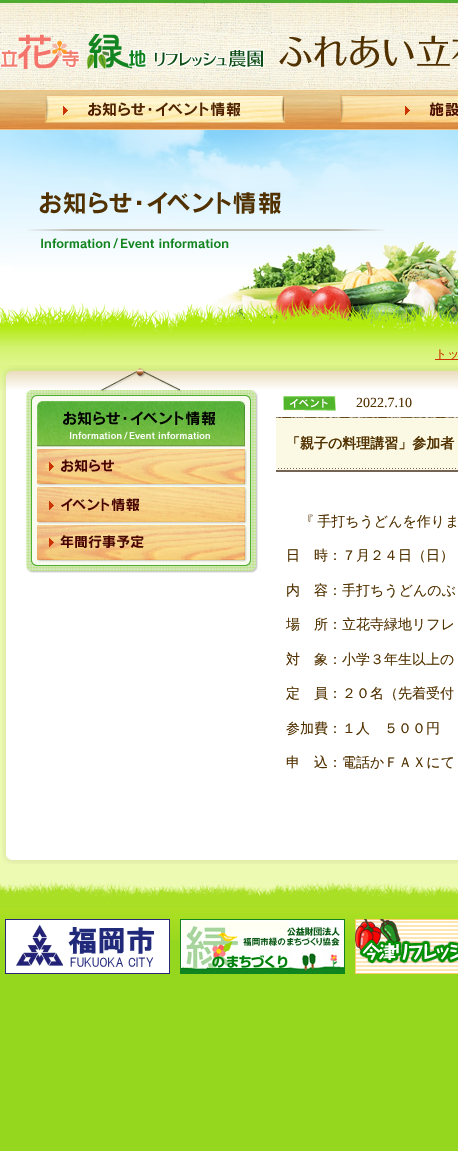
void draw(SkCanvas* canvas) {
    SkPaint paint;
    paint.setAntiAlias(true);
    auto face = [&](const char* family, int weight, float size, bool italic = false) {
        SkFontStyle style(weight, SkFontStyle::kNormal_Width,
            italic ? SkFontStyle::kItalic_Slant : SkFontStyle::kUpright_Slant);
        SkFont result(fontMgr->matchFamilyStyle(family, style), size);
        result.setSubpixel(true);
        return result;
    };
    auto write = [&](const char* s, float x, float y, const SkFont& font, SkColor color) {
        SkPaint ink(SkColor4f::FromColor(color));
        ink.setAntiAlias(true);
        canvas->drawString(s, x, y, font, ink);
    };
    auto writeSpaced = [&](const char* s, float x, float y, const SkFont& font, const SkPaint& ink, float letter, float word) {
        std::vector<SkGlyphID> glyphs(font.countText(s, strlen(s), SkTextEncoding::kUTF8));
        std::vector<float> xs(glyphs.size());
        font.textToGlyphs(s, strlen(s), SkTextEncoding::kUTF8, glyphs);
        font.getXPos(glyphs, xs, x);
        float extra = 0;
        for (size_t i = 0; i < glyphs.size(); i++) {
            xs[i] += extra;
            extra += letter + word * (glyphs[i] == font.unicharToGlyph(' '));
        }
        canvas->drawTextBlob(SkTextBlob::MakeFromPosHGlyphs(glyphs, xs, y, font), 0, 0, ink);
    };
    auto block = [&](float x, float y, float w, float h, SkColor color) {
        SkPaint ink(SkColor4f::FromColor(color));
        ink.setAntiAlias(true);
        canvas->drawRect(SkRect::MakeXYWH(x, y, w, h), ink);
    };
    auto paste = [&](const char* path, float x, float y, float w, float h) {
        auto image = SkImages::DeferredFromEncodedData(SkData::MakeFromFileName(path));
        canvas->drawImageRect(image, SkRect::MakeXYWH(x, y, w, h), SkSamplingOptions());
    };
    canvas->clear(SkColorSetRGB(148, 215, 30));
    paste("pic1.png", 0, 0, 458, 130);
    paste("pic2.png", 0, 34, 458, 36);
    paste("pic3.png", 45, 95, 240, 28);
    paste("pic4.png", 340, 95, 118, 28);
    block(0, 266, 458, 82, SK_ColorWHITE);
    paste("pic5.png", 0, 130, 12, 136);
    paste("pic6.png", 12, 130, 446, 205);
    paste("pic7.png", 27, 192, 358, 57);
    paste("pic8.png", 0, 298, 458, 50);
    block(0, 391, 458, 490, SkColorSetRGB(237, 250, 178));
    paste("pic9.png", 0, 348, 458, 17);
    block(435, 359, 23, 1, SkColorSetRGB(204, 51, 0));
    auto kFont1 = face("WenQuanYi Zen Hei", 500, 12);
    write("トッ", 435, 358, kFont1, SkColorSetRGB(204, 51, 0));
    paste("pic10.png", 0, 365, 458, 26);
    paste("pic11.png", 2, 848, 456, 16);
    paste("pic12.png", 2, 391, 456, 457);
    paste("pic13.png", 26, 368, 232, 205);
    paste("pic14.png", 37, 401, 208, 46);
    paste("pic15.png", 37, 449, 210, 38);
    paste("pic16.png", 37, 487, 210, 38);
    paste("pic17.png", 37, 525, 210, 38);
    paste("pic18.png", 283, 396, 53, 15);
    auto kFont2 = face("Liberation Serif", 400, 14);
    write("2022.7.10", 356, 407, kFont2, SkColorSetRGB(81, 49, 0));
    paste("pic19.png", 276, 417, 182, 55);
    auto kFont3 = face("WenQuanYi Zen Hei", 700, 14);
    write("「親子の料理講習」参加者", 286, 448, kFont3, SkColorSetRGB(81, 49, 0));
    auto kFont4 = face("WenQuanYi Zen Hei", 500, 14);
    paint.setColor(SkColorSetRGB(81, 49, 0));
    writeSpaced("『 手打ちうどんを作りま", 300, 526, kFont4, paint, 0, -1);
    write("日　時：７月２４日（日）", 286, 560, kFont4, SkColorSetRGB(81, 49, 0));
    write("内　容：手打ちうどんのぶ", 286, 595, kFont4, SkColorSetRGB(81, 49, 0));
    write("場　所：立花寺緑地リフレ", 286, 629, kFont4, SkColorSetRGB(81, 49, 0));
    write("対　象：小学３年生以上の", 286, 664, kFont4, SkColorSetRGB(81, 49, 0));
    write("定　員：２０名（先着受付", 286, 698, kFont4, SkColorSetRGB(81, 49, 0));
    write("参加費：１人　５００円", 286, 733, kFont4, SkColorSetRGB(81, 49, 0));
    write("申　込：電話かＦＡＸにて", 286, 767, kFont4, SkColorSetRGB(81, 49, 0));
    paste("pic20.png", 0, 881, 458, 59);
    paste("pic21.png", 5, 919, 165, 55);
    paste("pic22.png", 180, 919, 165, 55);
    paste("pic23.png", 355, 919, 103, 55);
}
